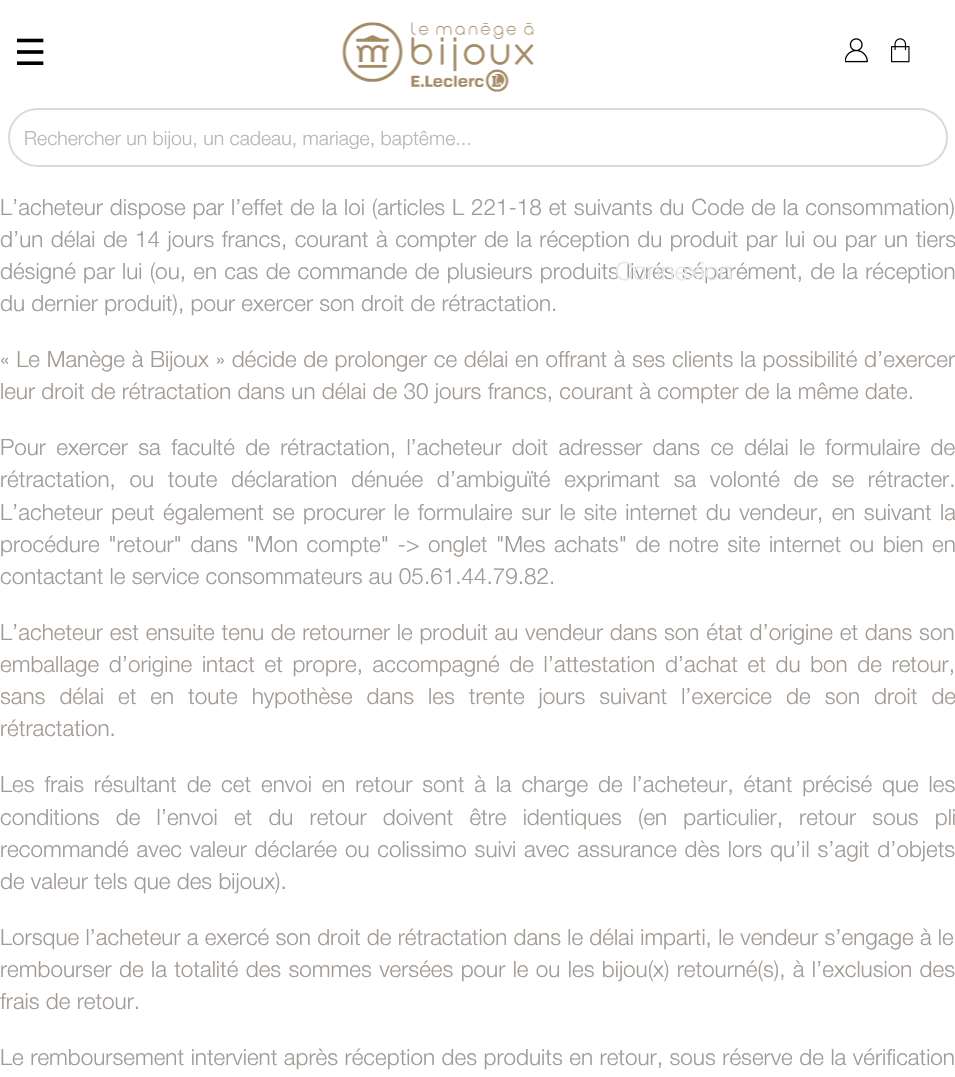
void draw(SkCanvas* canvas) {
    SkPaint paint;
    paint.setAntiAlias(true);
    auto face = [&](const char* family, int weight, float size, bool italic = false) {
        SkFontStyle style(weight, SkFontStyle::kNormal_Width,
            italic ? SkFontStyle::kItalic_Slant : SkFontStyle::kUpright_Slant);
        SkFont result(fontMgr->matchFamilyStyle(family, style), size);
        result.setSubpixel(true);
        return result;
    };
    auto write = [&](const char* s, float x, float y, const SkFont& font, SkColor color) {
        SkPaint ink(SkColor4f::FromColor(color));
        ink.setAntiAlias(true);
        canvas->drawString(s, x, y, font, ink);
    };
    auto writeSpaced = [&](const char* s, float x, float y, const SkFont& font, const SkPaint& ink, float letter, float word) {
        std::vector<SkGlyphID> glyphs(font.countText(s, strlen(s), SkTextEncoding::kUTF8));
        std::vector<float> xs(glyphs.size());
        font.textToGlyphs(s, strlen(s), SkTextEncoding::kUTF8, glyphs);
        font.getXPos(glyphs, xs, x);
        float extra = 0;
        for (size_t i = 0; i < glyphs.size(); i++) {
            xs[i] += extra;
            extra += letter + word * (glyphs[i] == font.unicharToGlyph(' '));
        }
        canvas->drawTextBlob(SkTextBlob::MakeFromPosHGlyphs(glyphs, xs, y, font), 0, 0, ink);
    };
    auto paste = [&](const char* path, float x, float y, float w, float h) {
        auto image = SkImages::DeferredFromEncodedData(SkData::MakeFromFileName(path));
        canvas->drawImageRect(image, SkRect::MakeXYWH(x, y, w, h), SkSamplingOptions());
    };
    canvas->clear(SK_ColorWHITE);
    auto kFont1 = face("DejaVu Sans", 400, 36);
    write("☰", 14, 65, kFont1, SK_ColorBLACK);
    paste("pic1.png", 342, 22, 192, 70);
    paste("pic2.png", 845, 38, 23, 25);
    paste("pic3.png", 891, 38, 19, 25);
    paint.setStyle(SkPaint::kStroke_Style);
    paint.setStrokeWidth(2);
    paint.setColor(SkColorSetRGB(223, 217, 213));
    canvas->drawRoundRect(SkRect::MakeXYWH(9, 109, 938, 57), 28.5f, 28.5f, paint);
    auto kFont2 = face("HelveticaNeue", 300, 19.5f);
    write("Rechercher un bijou, un cadeau, mariage, baptême...", 24, 145, kFont2, SkColorSetRGB(183, 183, 183));
    auto kFont3 = face("HelveticaNeue", 300, 22.5f);
    paint.setStyle(SkPaint::kFill_Style);
    paint.setColor(SkColorSetRGB(161, 154, 149));
    writeSpaced("L’acheteur dispose par l’effet de la loi (articles L 221-18 et suivants du Code de la consommation)", 0, 215, kFont3, paint, 0, 0.6f);
    writeSpaced("d’un délai de 14 jours francs, courant à compter de la réception du produit par lui ou par un tiers", 0, 247, kFont3, paint, 0, 1.25f);
    writeSpaced("désigné par lui (ou, en cas de commande de plusieurs produits livrés séparément, de la réception", 0, 279, kFont3, paint, 0, 1);
    write("du dernier produit), pour exercer son droit de rétractation.", 0, 311, kFont3, SkColorSetRGB(161, 154, 149));
    writeSpaced("« Le Manège à Bijoux » décide de prolonger ce délai en offrant à ses clients la possibilité d’exercer", 0, 367, kFont3, paint, 0, 0.4f);
    write("leur droit de rétractation dans un délai de 30 jours francs, courant à compter de la même date.", 0, 399, kFont3, SkColorSetRGB(161, 154, 149));
    writeSpaced("Pour exercer sa faculté de rétractation, l’acheteur doit adresser dans ce délai le formulaire de", 0, 455, kFont3, paint, 0, 4.1f);
    writeSpaced("rétractation, ou toute déclaration dénuée d’ambiguïté exprimant sa volonté de se rétracter.", 0, 487, kFont3, paint, 0, 7.4f);
    writeSpaced("L’acheteur peut également se procurer le formulaire sur le site internet du vendeur, en suivant la", 0, 520, kFont3, paint, 0, 2.1f);
    writeSpaced("procédure \"retour\" dans \"Mon compte\" -> onglet \"Mes achats\" de notre site internet ou bien en", 0, 552, kFont3, paint, 0, 2.25f);
    write("contactant le service consommateurs au 05.61.44.79.82.", 0, 584, kFont3, SkColorSetRGB(161, 154, 149));
    writeSpaced("L’acheteur est ensuite tenu de retourner le produit au vendeur dans son état d’origine et dans son", 0, 640, kFont3, paint, 0, 0.5f);
    writeSpaced("emballage d’origine intact et propre, accompagné de l’attestation d’achat et du bon de retour,", 0, 672, kFont3, paint, 0, 3.4f);
    writeSpaced("sans délai et en toute hypothèse dans les trente jours suivant l’exercice de son droit de", 0, 704, kFont3, paint, 0, 7.75f);
    write("rétractation.", 0, 736, kFont3, SkColorSetRGB(161, 154, 149));
    writeSpaced("Les frais résultant de cet envoi en retour sont à la charge de l’acheteur, étant précisé que les", 0, 792, kFont3, paint, 0, 3.6f);
    writeSpaced("conditions de l’envoi et du retour doivent être identiques (en particulier, retour sous pli", 0, 825, kFont3, paint, 0, 9.9f);
    writeSpaced("recommandé avec valeur déclarée ou colissimo suivi avec assurance dès lors qu’il s’agit d’objets", 0, 857, kFont3, paint, 0, 1.5f);
    write("de valeur tels que des bijoux).", 0, 889, kFont3, SkColorSetRGB(161, 154, 149));
    write("Lorsque l’acheteur a exercé son droit de rétractation dans le délai imparti, le vendeur s’engage à le", 0, 945, kFont3, SkColorSetRGB(161, 154, 149));
    writeSpaced("rembourser de la totalité des sommes versées pour le ou les bijou(x) retourné(s), à l’exclusion des", 0, 977, kFont3, paint, 0, 1.1f);
    write("frais de retour.", 0, 1009, kFont3, SkColorSetRGB(161, 154, 149));
    writeSpaced("Le remboursement intervient après réception des produits en retour, sous réserve de la vérification", 0, 1065, kFont3, paint, 0, 0.3f);
    auto kFont4 = face("HelveticaNeue", 300, 25.5f);
    write("Connexion", 615, 280, kFont4, SkColorSetRGB(234, 232, 231));
}
